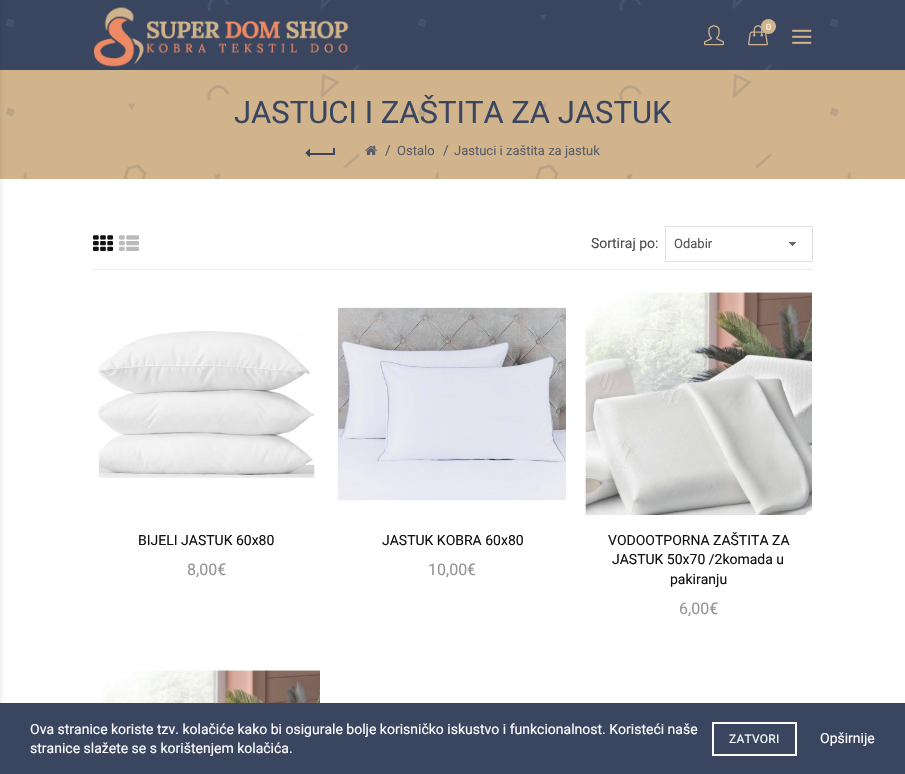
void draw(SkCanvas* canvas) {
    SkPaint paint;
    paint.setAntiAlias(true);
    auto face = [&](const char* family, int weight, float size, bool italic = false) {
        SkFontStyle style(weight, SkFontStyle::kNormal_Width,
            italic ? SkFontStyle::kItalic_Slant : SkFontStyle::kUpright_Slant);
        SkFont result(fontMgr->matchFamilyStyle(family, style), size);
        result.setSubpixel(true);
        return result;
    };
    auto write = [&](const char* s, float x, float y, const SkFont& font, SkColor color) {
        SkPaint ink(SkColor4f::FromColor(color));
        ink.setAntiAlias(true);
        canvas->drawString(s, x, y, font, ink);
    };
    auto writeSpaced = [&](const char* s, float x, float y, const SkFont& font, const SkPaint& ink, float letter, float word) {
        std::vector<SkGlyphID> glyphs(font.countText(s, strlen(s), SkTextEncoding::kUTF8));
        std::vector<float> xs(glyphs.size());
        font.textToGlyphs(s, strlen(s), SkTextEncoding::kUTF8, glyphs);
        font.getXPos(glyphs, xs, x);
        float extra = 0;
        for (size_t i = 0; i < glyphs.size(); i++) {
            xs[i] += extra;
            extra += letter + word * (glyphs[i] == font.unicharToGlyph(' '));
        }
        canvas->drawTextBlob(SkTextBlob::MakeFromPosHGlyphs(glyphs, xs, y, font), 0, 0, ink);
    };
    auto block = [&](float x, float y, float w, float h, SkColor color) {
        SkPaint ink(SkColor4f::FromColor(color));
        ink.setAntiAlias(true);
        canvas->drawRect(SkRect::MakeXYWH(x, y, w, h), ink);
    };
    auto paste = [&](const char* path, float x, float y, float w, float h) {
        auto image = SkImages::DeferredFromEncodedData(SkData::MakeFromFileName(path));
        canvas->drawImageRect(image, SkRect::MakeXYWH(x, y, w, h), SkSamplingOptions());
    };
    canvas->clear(SK_ColorWHITE);
    paste("pic1.png", 0, 0, 905, 70);
    paste("pic6.png", 0, 70, 905, 109);
    paint.setColor(SkColorSetARGB(33, 0, 0, 0));
    paint.setMaskFilter(SkMaskFilter::MakeBlur(kNormal_SkBlurStyle, 2.5f));
    canvas->drawRect(SkRect::MakeXYWH(-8, 1, 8, 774), paint);
    paint.setMaskFilter(nullptr);
    paste("pic2.png", 94, 7, 255, 60);
    paste("pic3.png", 704, 25, 20, 21);
    paste("pic4.png", 748, 25, 20, 21);
    paint.setColor(SkColorSetRGB(210, 180, 140));
    canvas->drawCircle(768.5f, 26.5f, 7.5f, paint);
    auto kFont1 = face("Liberation Sans", 400, 9);
    write("0", 766, 30, kFont1, SK_ColorWHITE);
    paste("pic5.png", 792, 29, 20, 15);
    auto kFont2 = face("Roboto", 400, 31);
    write("JASTUCI I ZAŠTITA ZA JASTUK", 234, 123, kFont2, SkColorSetRGB(58, 70, 96));
    block(309, 153, 25, 2, SkColorSetRGB(58, 70, 96));
    paste("pic7.png", 305, 149, 5, 8);
    block(333, 148, 2, 7, SkColorSetRGB(58, 70, 96));
    paste("pic8.png", 365, 145, 12, 10);
    auto kFont3 = face("Roboto", 400, 14);
    write("/", 385, 155, kFont3, SkColorSetRGB(88, 92, 105));
    auto kFont4 = face("Roboto", 400, 13);
    write("Ostalo", 397, 155, kFont4, SkColorSetRGB(88, 92, 105));
    write("/", 443, 155, kFont3, SkColorSetRGB(88, 92, 105));
    write("Jastuci i zaštita za jastuk", 454, 155, kFont4, SkColorSetRGB(88, 92, 105));
    block(93, 269, 720, 1, SkColorSetRGB(236, 236, 236));
    paste("pic9.png", 93, 235, 20, 16);
    paste("pic10.png", 119, 235, 20, 16);
    write("Sortiraj po:", 591, 248, kFont3, SkColorSetRGB(76, 76, 76));
    paste("pic11.png", 789, 242, 7, 4);
    paint.setStyle(SkPaint::kStroke_Style);
    paint.setStrokeWidth(1);
    paint.setColor(SkColorSetRGB(223, 223, 223));
    canvas->drawRect(SkRect::MakeXYWH(665.5f, 226.5f, 147, 35), paint);
    write("Odabir", 674, 248, kFont4, SkColorSetRGB(85, 85, 85));
    paste("pic12.png", 98, 331, 217, 147);
    write("BIJELI JASTUK 60x80", 138, 545, kFont3, SkColorSetRGB(17, 17, 17));
    auto kFont5 = face("Roboto", 400, 16);
    write("8,00€", 187, 575, kFont5, SkColorSetRGB(148, 148, 148));
    paste("pic13.png", 338, 307, 228, 194);
    write("JASTUK KOBRA 60x80", 382, 545, kFont3, SkColorSetRGB(17, 17, 17));
    write("10,00€", 428, 575, kFont5, SkColorSetRGB(148, 148, 148));
    paste("pic14.png", 584, 291, 228, 226);
    write("VODOOTPORNA ZAŠTITA ZA", 608, 545, kFont3, SkColorSetRGB(17, 17, 17));
    write("JASTUK 50x70 /2komada u", 612, 564, kFont3, SkColorSetRGB(17, 17, 17));
    write("pakiranju", 670, 584, kFont3, SkColorSetRGB(17, 17, 17));
    write("6,00€", 679, 614, kFont5, SkColorSetRGB(148, 148, 148));
    paste("pic15.png", 93, 669, 227, 34);
    block(0, 703, 905, 71, SkColorSetRGB(58, 70, 96));
    write("Ova stranice koriste tzv. kolačiće kako bi osigurale bolje korisničko iskustvo i funkcionalnost. Koristeći naše", 30, 734, kFont3, SK_ColorWHITE);
    write("stranice slažete se s korištenjem kolačića.", 30, 753, kFont3, SK_ColorWHITE);
    paint.setStrokeWidth(2);
    paint.setColor(SK_ColorWHITE);
    canvas->drawRect(SkRect::MakeXYWH(713, 723, 83, 32), paint);
    auto kFont6 = face("Roboto", 400, 12);
    paint.setStyle(SkPaint::kFill_Style);
    writeSpaced("ZATVORI", 729, 743, kFont6, paint, 0.25f, 0);
    write("Opširnije", 820, 743, kFont3, SK_ColorWHITE);
}
